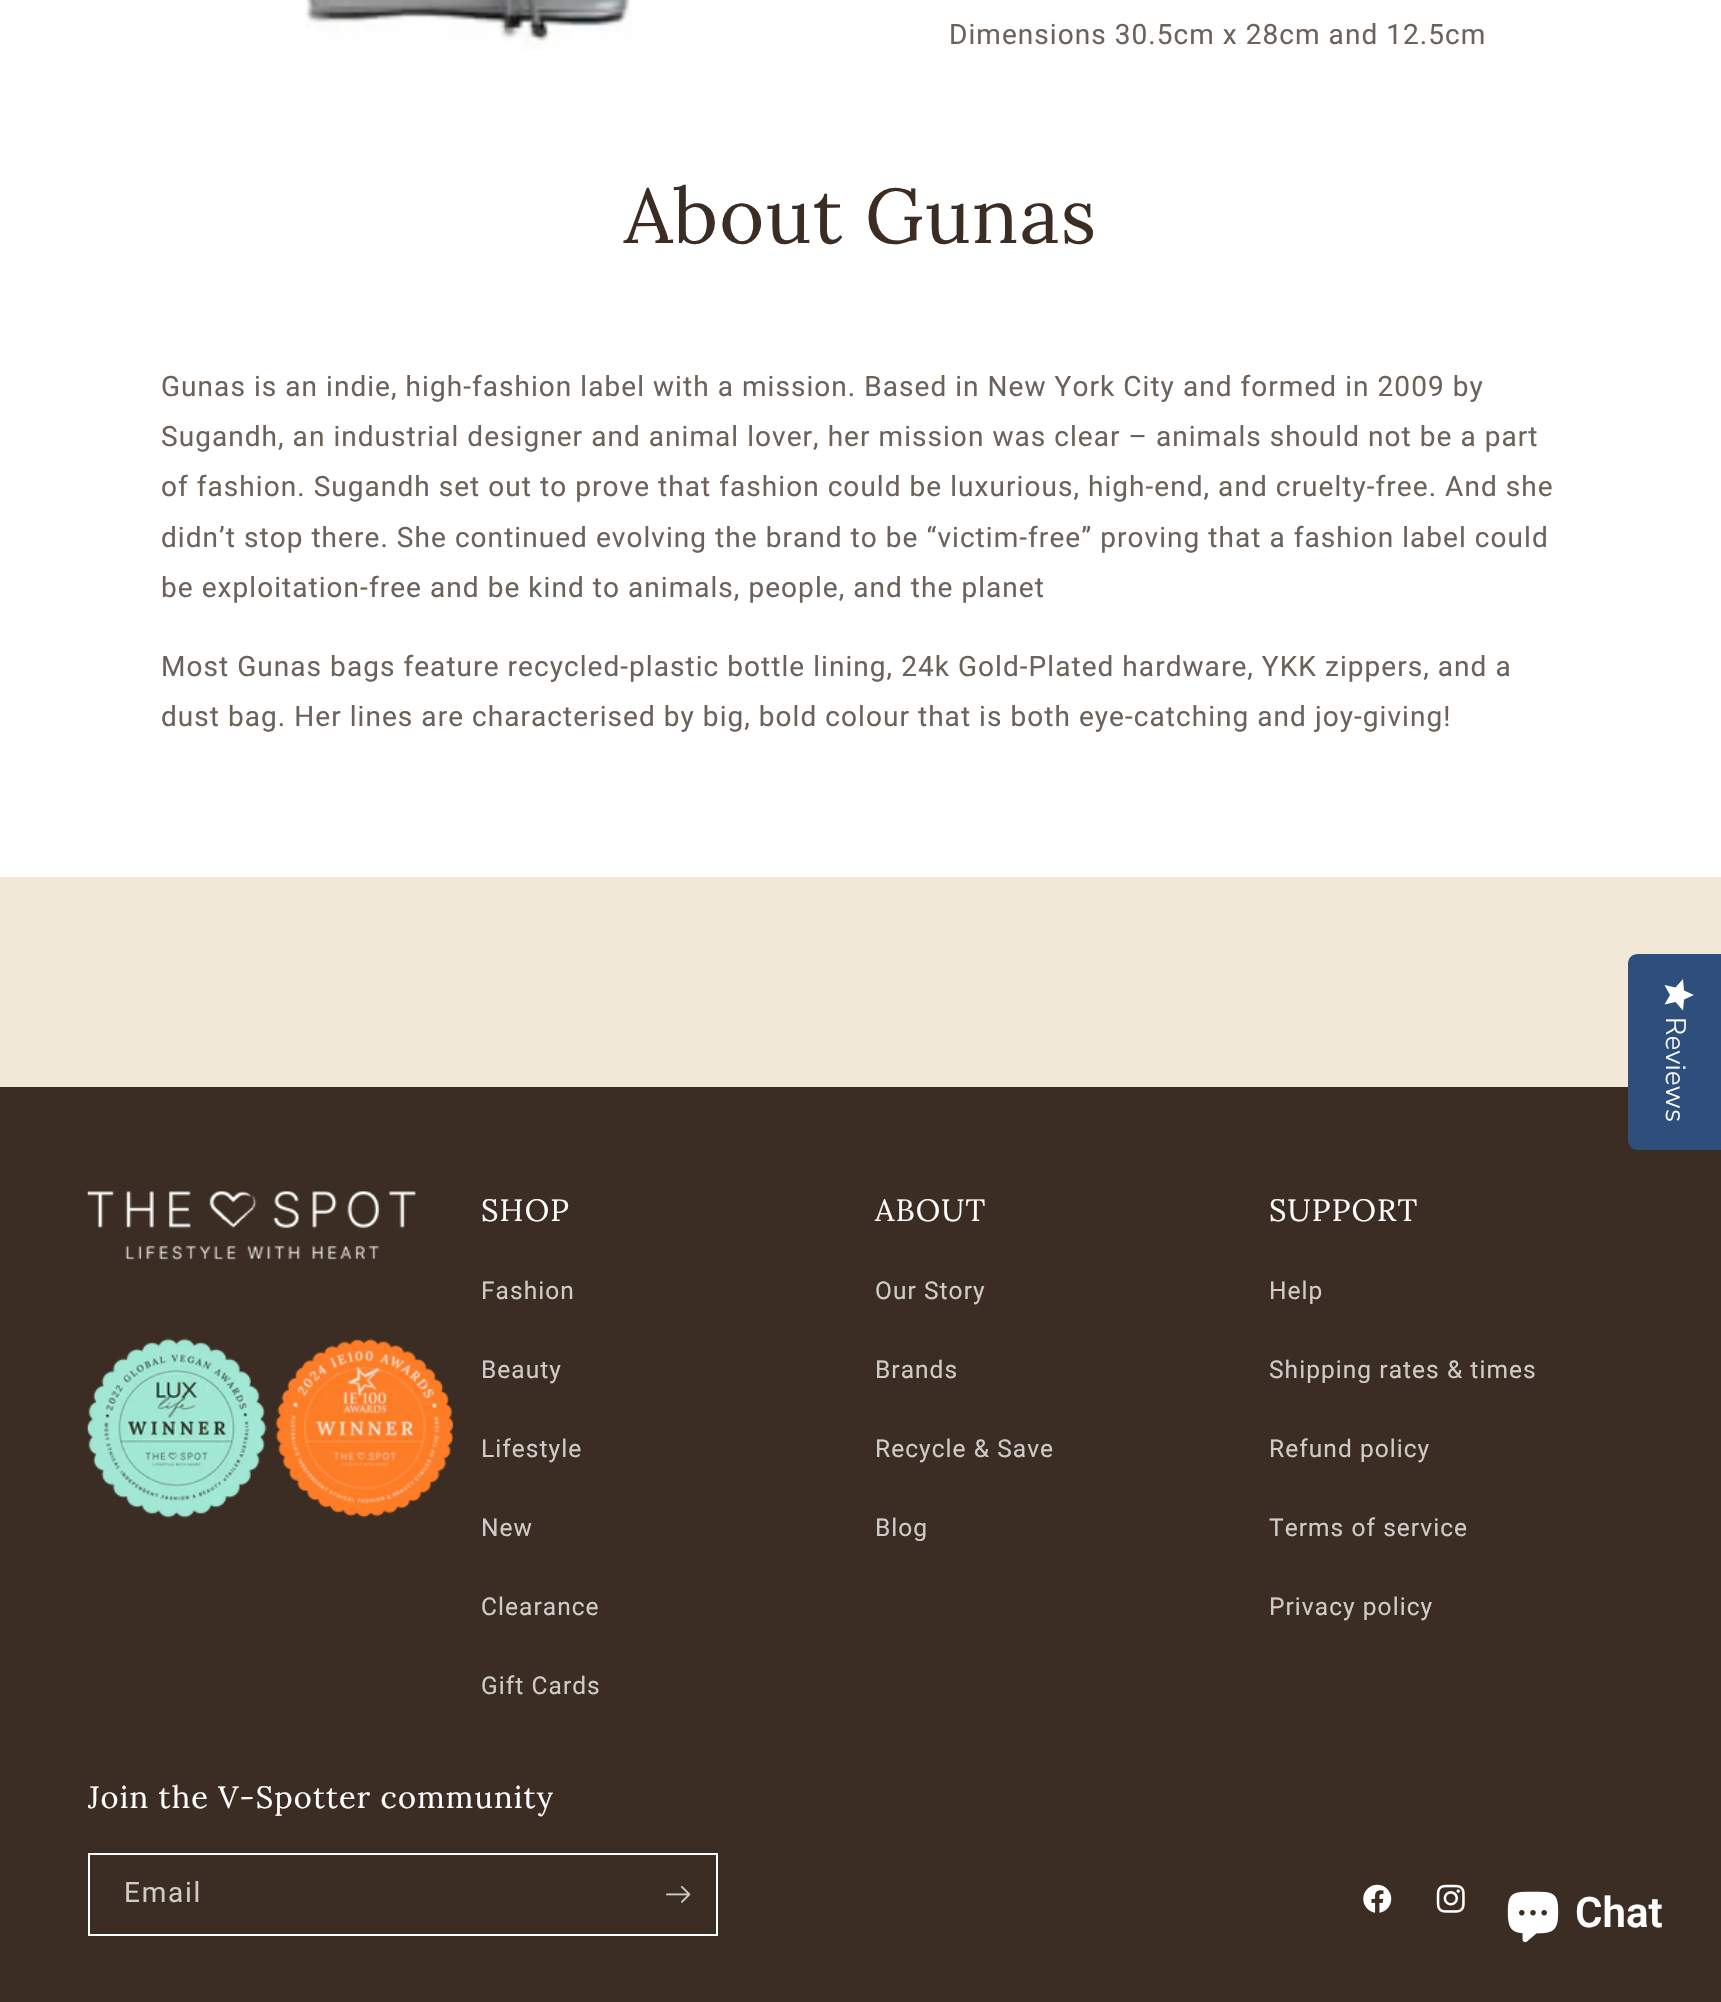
void draw(SkCanvas* canvas) {
    SkPaint paint;
    paint.setAntiAlias(true);
    auto face = [&](const char* family, int weight, float size, bool italic = false) {
        SkFontStyle style(weight, SkFontStyle::kNormal_Width,
            italic ? SkFontStyle::kItalic_Slant : SkFontStyle::kUpright_Slant);
        SkFont result(fontMgr->matchFamilyStyle(family, style), size);
        result.setSubpixel(true);
        return result;
    };
    auto write = [&](const char* s, float x, float y, const SkFont& font, SkColor color) {
        SkPaint ink(SkColor4f::FromColor(color));
        ink.setAntiAlias(true);
        canvas->drawString(s, x, y, font, ink);
    };
    auto writeSpaced = [&](const char* s, float x, float y, const SkFont& font, const SkPaint& ink, float letter, float word) {
        std::vector<SkGlyphID> glyphs(font.countText(s, strlen(s), SkTextEncoding::kUTF8));
        std::vector<float> xs(glyphs.size());
        font.textToGlyphs(s, strlen(s), SkTextEncoding::kUTF8, glyphs);
        font.getXPos(glyphs, xs, x);
        float extra = 0;
        for (size_t i = 0; i < glyphs.size(); i++) {
            xs[i] += extra;
            extra += letter + word * (glyphs[i] == font.unicharToGlyph(' '));
        }
        canvas->drawTextBlob(SkTextBlob::MakeFromPosHGlyphs(glyphs, xs, y, font), 0, 0, ink);
    };
    auto block = [&](float x, float y, float w, float h, SkColor color) {
        SkPaint ink(SkColor4f::FromColor(color));
        ink.setAntiAlias(true);
        canvas->drawRect(SkRect::MakeXYWH(x, y, w, h), ink);
    };
    auto paste = [&](const char* path, float x, float y, float w, float h) {
        auto image = SkImages::DeferredFromEncodedData(SkData::MakeFromFileName(path));
        canvas->drawImageRect(image, SkRect::MakeXYWH(x, y, w, h), SkSamplingOptions());
    };
    canvas->clear(SK_ColorWHITE);
    paste("pic1.png", 305, 0, 327, 50);
    auto kFont1 = face("Roboto", 400, 28);
    paint.setColor(SkColorSetRGB(108, 98, 90));
    writeSpaced("Dimensions 30.5cm x 28cm and 12.5cm", 949, 44, kFont1, paint, 1.05f, 0);
    auto kFont2 = face("Lora", 400, 77);
    paint.setColor(SkColorSetRGB(59, 45, 35));
    writeSpaced("About Gunas", 624, 243, kFont2, paint, 1.15f, 0);
    paint.setColor(SkColorSetRGB(108, 98, 90));
    writeSpaced("Gunas is an indie, high-fashion label with a mission. Based in New York City and formed in 2009 by", 161, 396, kFont1, paint, 1.05f, 0);
    writeSpaced("Sugandh, an industrial designer and animal lover, her mission was clear – animals should not be a part", 161, 446, kFont1, paint, 1.05f, 0);
    writeSpaced("of fashion. Sugandh set out to prove that fashion could be luxurious, high-end, and cruelty-free. And she", 161, 496, kFont1, paint, 1.05f, 0);
    writeSpaced("didn’t stop there. She continued evolving the brand to be “victim-free” proving that a fashion label could", 161, 547, kFont1, paint, 1.05f, 0);
    writeSpaced("be exploitation-free and be kind to animals, people, and the planet", 161, 597, kFont1, paint, 1.05f, 0);
    writeSpaced("Most Gunas bags feature recycled-plastic bottle lining, 24k Gold-Plated hardware, YKK zippers, and a", 161, 676, kFont1, paint, 1.05f, 0);
    writeSpaced("dust bag. Her lines are characterised by big, bold colour that is both eye-catching and joy-giving!", 161, 726, kFont1, paint, 1.05f, 0);
    block(0, 877, 1721, 210, SkColorSetRGB(241, 232, 215));
    block(0, 1087, 1721, 915, SkColorSetRGB(59, 45, 35));
    paint.setColor(SkColorSetRGB(46, 79, 124));
    canvas->drawPath(SkPathBuilder().moveTo(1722, 954).lineTo(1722, 1150).lineTo(1638, 1150).cubicTo(1632, 1150, 1628, 1145, 1628, 1140).lineTo(1628, 964).cubicTo(1628, 958, 1632, 954, 1638, 954).close().detach(), paint);
    {
        const SkColor colors[] = {SK_ColorWHITE, SkColorSetRGB(234, 234, 234)};
        const float stops[] = {1, 1};
        const SkPoint ends[] = {{1694, 979}, {1694, 1011}};
        paint.setShader(SkGradientShader::MakeLinear(ends, colors, stops, 2, SkTileMode::kClamp));
        paint.setAlpha(255);
    }
    canvas->drawPath(SkPathBuilder().moveTo(1670, 995).lineTo(1664.5f, 1004.5f).lineTo(1675.5f, 1002).lineTo(1683, 1010.5f).lineTo(1684, 999.5f).lineTo(1694, 995).lineTo(1684, 990.5f).lineTo(1683, 979).lineTo(1675.5f, 987.5f).lineTo(1664.5f, 985).close().detach(), paint);
    auto kFont3 = face("Nunito Sans", 300, 28);
    canvas->save();
    canvas->rotate(90, 1666, 1017);
    write("Reviews", 1666, 1017, kFont3, SK_ColorWHITE);
    canvas->restore();
    paste("pic2.png", 87, 1191, 367, 327);
    auto kFont4 = face("Lora", 400, 30.75f);
    paint.setShader(nullptr);
    paint.setColor(SK_ColorWHITE);
    writeSpaced("SHOP", 481, 1221, kFont4, paint, 1.15f, 0);
    auto kFont5 = face("Roboto", 400, 24.5f);
    paint.setColor(SkColorSetRGB(206, 203, 200));
    writeSpaced("Fashion", 481, 1299, kFont5, paint, 1.05f, 0);
    writeSpaced("Beauty", 481, 1378, kFont5, paint, 1.05f, 0);
    writeSpaced("Lifestyle", 481, 1457, kFont5, paint, 1.05f, 0);
    writeSpaced("New", 481, 1536, kFont5, paint, 1.05f, 0);
    writeSpaced("Clearance", 481, 1615, kFont5, paint, 1.05f, 0);
    writeSpaced("Gift Cards", 481, 1694, kFont5, paint, 1.05f, 0);
    paint.setColor(SK_ColorWHITE);
    writeSpaced("ABOUT", 875, 1221, kFont4, paint, 1.15f, 0);
    paint.setColor(SkColorSetRGB(206, 203, 200));
    writeSpaced("Our Story", 875, 1299, kFont5, paint, 1.05f, 0);
    writeSpaced("Brands", 875, 1378, kFont5, paint, 1.05f, 0);
    writeSpaced("Recycle & Save", 875, 1457, kFont5, paint, 1.05f, 0);
    writeSpaced("Blog", 875, 1536, kFont5, paint, 1.05f, 0);
    paint.setColor(SK_ColorWHITE);
    writeSpaced("SUPPORT", 1269, 1221, kFont4, paint, 1.15f, 0);
    paint.setColor(SkColorSetRGB(206, 203, 200));
    writeSpaced("Help", 1269, 1299, kFont5, paint, 1.05f, 0);
    writeSpaced("Shipping rates & times", 1269, 1378, kFont5, paint, 1.05f, 0);
    writeSpaced("Refund policy", 1269, 1457, kFont5, paint, 1.05f, 0);
    writeSpaced("Terms of service", 1269, 1536, kFont5, paint, 1.05f, 0);
    writeSpaced("Privacy policy", 1269, 1615, kFont5, paint, 1.05f, 0);
    paint.setColor(SK_ColorWHITE);
    writeSpaced("Join the V-Spotter community", 88, 1808, kFont4, paint, 1.15f, 0);
    paint.setStyle(SkPaint::kStroke_Style);
    paint.setStrokeWidth(2);
    canvas->drawRect(SkRect::MakeXYWH(89, 1854, 628, 81), paint);
    paint.setStyle(SkPaint::kFill_Style);
    paint.setColor(SkColorSetRGB(206, 203, 200));
    writeSpaced("Email", 124, 1902, kFont1, paint, 1.75f, 0);
    paste("pic3.png", 666, 1886, 25, 17);
    paste("pic4.png", 1363, 1884, 29, 29);
    paste("pic5.png", 1436, 1884, 29, 29);
    paste("pic6.png", 1507, 1891, 52, 52);
    auto kFont6 = face("Roboto", 600, 42);
    write("Chat", 1575, 1927, kFont6, SK_ColorWHITE);
}
